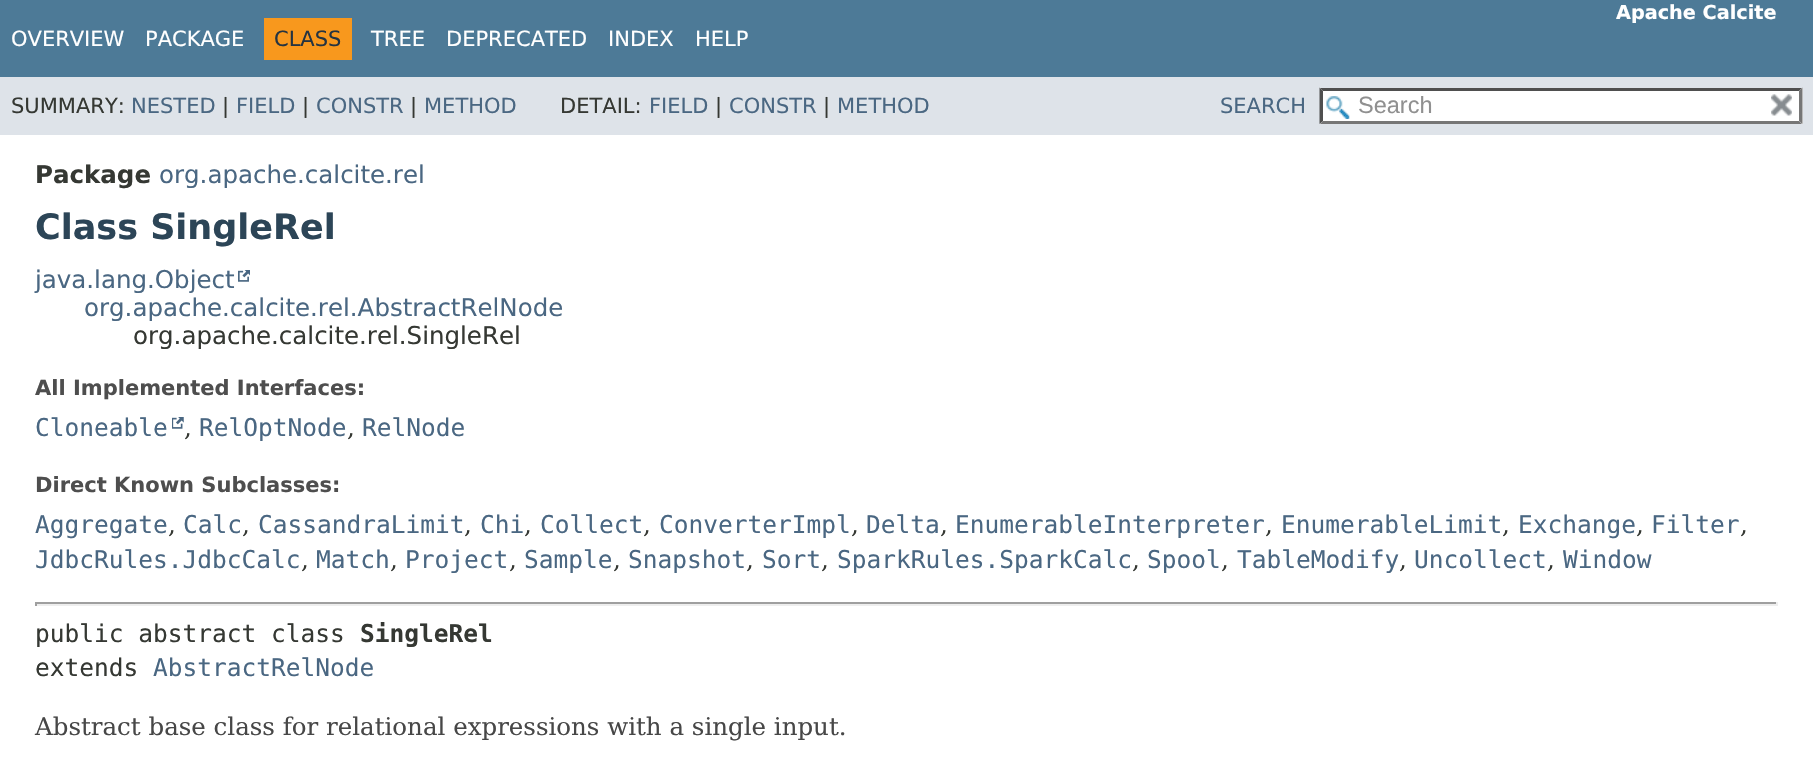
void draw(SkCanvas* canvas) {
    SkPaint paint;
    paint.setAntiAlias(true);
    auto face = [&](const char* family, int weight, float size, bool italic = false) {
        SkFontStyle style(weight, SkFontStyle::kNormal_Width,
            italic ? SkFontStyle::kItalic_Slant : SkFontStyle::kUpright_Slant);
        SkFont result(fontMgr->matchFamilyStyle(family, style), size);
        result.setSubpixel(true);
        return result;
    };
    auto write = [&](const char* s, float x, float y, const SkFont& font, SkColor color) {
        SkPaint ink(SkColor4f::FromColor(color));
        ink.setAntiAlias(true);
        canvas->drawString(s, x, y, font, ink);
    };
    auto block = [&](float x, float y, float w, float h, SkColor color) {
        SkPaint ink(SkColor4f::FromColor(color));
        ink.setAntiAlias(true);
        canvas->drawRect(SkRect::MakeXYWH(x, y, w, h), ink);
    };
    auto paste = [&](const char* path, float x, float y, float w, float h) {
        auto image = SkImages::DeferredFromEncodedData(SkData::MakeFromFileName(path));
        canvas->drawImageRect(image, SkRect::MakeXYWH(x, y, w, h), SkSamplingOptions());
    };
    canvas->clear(SK_ColorWHITE);
    block(0, 0, 1813, 77, SkColorSetRGB(77, 122, 151));
    auto kFont1 = face("DejaVu Sans", 700, 19.25f);
    write("Apache Calcite", 1616, 19, kFont1, SK_ColorWHITE);
    auto kFont2 = face("DejaVu Sans", 400, 21);
    write("OVERVIEW", 11, 46, kFont2, SK_ColorWHITE);
    write("PACKAGE", 145, 46, kFont2, SK_ColorWHITE);
    block(264, 18, 88, 42, SkColorSetRGB(248, 152, 29));
    write("CLASS", 274, 46, kFont2, SkColorSetRGB(37, 52, 65));
    write("TREE", 371, 46, kFont2, SK_ColorWHITE);
    write("DEPRECATED", 446, 46, kFont2, SK_ColorWHITE);
    write("INDEX", 608, 46, kFont2, SK_ColorWHITE);
    write("HELP", 695, 46, kFont2, SK_ColorWHITE);
    block(0, 77, 1813, 58, SkColorSetRGB(222, 227, 233));
    write("SUMMARY:", 11, 113, kFont2, SkColorSetRGB(53, 56, 51));
    write("NESTED", 131, 113, kFont2, SkColorSetRGB(74, 103, 130));
    write("|", 222, 113, kFont2, SkColorSetRGB(53, 56, 51));
    write("FIELD", 236, 113, kFont2, SkColorSetRGB(74, 103, 130));
    write("|", 302, 113, kFont2, SkColorSetRGB(53, 56, 51));
    write("CONSTR", 316, 113, kFont2, SkColorSetRGB(74, 103, 130));
    write("|", 410, 113, kFont2, SkColorSetRGB(53, 56, 51));
    write("METHOD", 424, 113, kFont2, SkColorSetRGB(74, 103, 130));
    write("DETAIL:", 560, 113, kFont2, SkColorSetRGB(53, 56, 51));
    write("FIELD", 649, 113, kFont2, SkColorSetRGB(74, 103, 130));
    write("|", 715, 113, kFont2, SkColorSetRGB(53, 56, 51));
    write("CONSTR", 729, 113, kFont2, SkColorSetRGB(74, 103, 130));
    write("|", 823, 113, kFont2, SkColorSetRGB(53, 56, 51));
    write("METHOD", 837, 113, kFont2, SkColorSetRGB(74, 103, 130));
    write("SEARCH", 1220, 113, kFont2, SkColorSetRGB(74, 103, 130));
    block(1320, 88, 483, 36, SK_ColorWHITE);
    paste("pic1.png", 1326, 96, 24, 23);
    paint.setColor(SkColorSetRGB(79, 79, 79));
    canvas->drawPath(SkPathBuilder().moveTo(1320, 88).lineTo(1802, 88).lineTo(1799, 91).lineTo(1323, 91).close().detach(), paint);
    paint.setColor(SkColorSetRGB(118, 118, 118));
    canvas->drawPath(SkPathBuilder().moveTo(1802.5f, 87.5f).lineTo(1802.5f, 124).lineTo(1799, 121).lineTo(1799, 91).close().detach(), paint);
    canvas->drawPath(SkPathBuilder().moveTo(1802, 124).lineTo(1320, 124).lineTo(1323, 121).lineTo(1799, 121).close().detach(), paint);
    paint.setColor(SkColorSetRGB(79, 79, 79));
    canvas->drawPath(SkPathBuilder().moveTo(1319.5f, 124).lineTo(1319.5f, 87.5f).lineTo(1323, 91).lineTo(1323, 121).close().detach(), paint);
    auto kFont3 = face("Liberation Sans", 400, 23.5f);
    write("Search", 1358, 113, kFont3, SkColorSetRGB(144, 144, 144));
    paste("pic2.png", 1771, 94, 21, 22);
    auto kFont4 = face("DejaVu Sans", 700, 24.5f);
    write("Package", 35, 183, kFont4, SkColorSetRGB(53, 56, 51));
    auto kFont5 = face("DejaVu Sans", 400, 24.5f);
    write("org.apache.calcite.rel", 159, 183, kFont5, SkColorSetRGB(74, 103, 130));
    auto kFont6 = face("DejaVu Sans", 700, 35);
    write("Class SingleRel", 35, 239, kFont6, SkColorSetRGB(44, 69, 87));
    write("java.lang.Object", 35, 288, kFont5, SkColorSetRGB(74, 103, 130));
    paste("pic3.png", 238, 270, 12, 12);
    write("org.apache.calcite.rel.AbstractRelNode", 84, 316, kFont5, SkColorSetRGB(74, 103, 130));
    write("org.apache.calcite.rel.SingleRel", 133, 344, kFont5, SkColorSetRGB(53, 56, 51));
    auto kFont7 = face("DejaVu Sans", 700, 21);
    write("All Implemented Interfaces:", 35, 395, kFont7, SkColorSetRGB(78, 78, 78));
    auto kFont8 = face("DejaVu Sans Mono", 400, 24.5f);
    write("Cloneable", 35, 436, kFont8, SkColorSetRGB(74, 103, 130));
    paste("pic4.png", 172, 417, 12, 12);
    auto kFont9 = face("DejaVu Serif", 400, 24.5f);
    write(",", 184, 436, kFont9, SkColorSetRGB(53, 56, 51));
    write("RelOptNode", 199, 436, kFont8, SkColorSetRGB(74, 103, 130));
    write(",", 347, 436, kFont9, SkColorSetRGB(53, 56, 51));
    write("RelNode", 362, 436, kFont8, SkColorSetRGB(74, 103, 130));
    write("Direct Known Subclasses:", 35, 492, kFont7, SkColorSetRGB(78, 78, 78));
    write("Aggregate", 35, 533, kFont8, SkColorSetRGB(74, 103, 130));
    write(",", 168, 533, kFont9, SkColorSetRGB(53, 56, 51));
    write("Calc", 183, 533, kFont8, SkColorSetRGB(74, 103, 130));
    write(",", 242, 533, kFont9, SkColorSetRGB(53, 56, 51));
    write("CassandraLimit", 258, 533, kFont8, SkColorSetRGB(74, 103, 130));
    write(",", 464, 533, kFont9, SkColorSetRGB(53, 56, 51));
    write("Chi", 480, 533, kFont8, SkColorSetRGB(74, 103, 130));
    write(",", 524, 533, kFont9, SkColorSetRGB(53, 56, 51));
    write("Collect", 540, 533, kFont8, SkColorSetRGB(74, 103, 130));
    write(",", 643, 533, kFont9, SkColorSetRGB(53, 56, 51));
    write("ConverterImpl", 659, 533, kFont8, SkColorSetRGB(74, 103, 130));
    write(",", 851, 533, kFont9, SkColorSetRGB(53, 56, 51));
    write("Delta", 866, 533, kFont8, SkColorSetRGB(74, 103, 130));
    write(",", 940, 533, kFont9, SkColorSetRGB(53, 56, 51));
    write("EnumerableInterpreter", 955, 533, kFont8, SkColorSetRGB(74, 103, 130));
    write(",", 1265, 533, kFont9, SkColorSetRGB(53, 56, 51));
    write("EnumerableLimit", 1281, 533, kFont8, SkColorSetRGB(74, 103, 130));
    write(",", 1502, 533, kFont9, SkColorSetRGB(53, 56, 51));
    write("Exchange", 1518, 533, kFont8, SkColorSetRGB(74, 103, 130));
    write(",", 1636, 533, kFont9, SkColorSetRGB(53, 56, 51));
    write("Filter", 1651, 533, kFont8, SkColorSetRGB(74, 103, 130));
    write(",", 1740, 533, kFont9, SkColorSetRGB(53, 56, 51));
    write("JdbcRules.JdbcCalc", 35, 568, kFont8, SkColorSetRGB(74, 103, 130));
    write(",", 301, 568, kFont9, SkColorSetRGB(53, 56, 51));
    write("Match", 316, 568, kFont8, SkColorSetRGB(74, 103, 130));
    write(",", 390, 568, kFont9, SkColorSetRGB(53, 56, 51));
    write("Project", 405, 568, kFont8, SkColorSetRGB(74, 103, 130));
    write(",", 509, 568, kFont9, SkColorSetRGB(53, 56, 51));
    write("Sample", 524, 568, kFont8, SkColorSetRGB(74, 103, 130));
    write(",", 613, 568, kFont9, SkColorSetRGB(53, 56, 51));
    write("Snapshot", 628, 568, kFont8, SkColorSetRGB(74, 103, 130));
    write(",", 746, 568, kFont9, SkColorSetRGB(53, 56, 51));
    write("Sort", 762, 568, kFont8, SkColorSetRGB(74, 103, 130));
    write(",", 821, 568, kFont9, SkColorSetRGB(53, 56, 51));
    write("SparkRules.SparkCalc", 837, 568, kFont8, SkColorSetRGB(74, 103, 130));
    write(",", 1132, 568, kFont9, SkColorSetRGB(53, 56, 51));
    write("Spool", 1147, 568, kFont8, SkColorSetRGB(74, 103, 130));
    write(",", 1221, 568, kFont9, SkColorSetRGB(53, 56, 51));
    write("TableModify", 1237, 568, kFont8, SkColorSetRGB(74, 103, 130));
    write(",", 1399, 568, kFont9, SkColorSetRGB(53, 56, 51));
    write("Uncollect", 1414, 568, kFont8, SkColorSetRGB(74, 103, 130));
    write(",", 1547, 568, kFont9, SkColorSetRGB(53, 56, 51));
    write("Window", 1563, 568, kFont8, SkColorSetRGB(74, 103, 130));
    block(35, 602, 1743, 2, SkColorSetRGB(159, 159, 159));
    block(1776, 602, 2, 4, SkColorSetRGB(238, 238, 238));
    block(35, 604, 1743, 2, SkColorSetRGB(238, 238, 238));
    block(35, 602, 2, 4, SkColorSetRGB(159, 159, 159));
    write("public abstract class", 35, 642, kFont8, SkColorSetRGB(53, 56, 51));
    auto kFont10 = face("DejaVu Sans Mono", 700, 24.5f);
    write("SingleRel", 360, 642, kFont10, SkColorSetRGB(53, 56, 51));
    write("extends", 35, 676, kFont8, SkColorSetRGB(53, 56, 51));
    write("AbstractRelNode", 153, 676, kFont8, SkColorSetRGB(74, 103, 130));
    write("Abstract base class for relational expressions with a single input.", 35, 735, kFont9, SkColorSetRGB(71, 71, 71));
}
